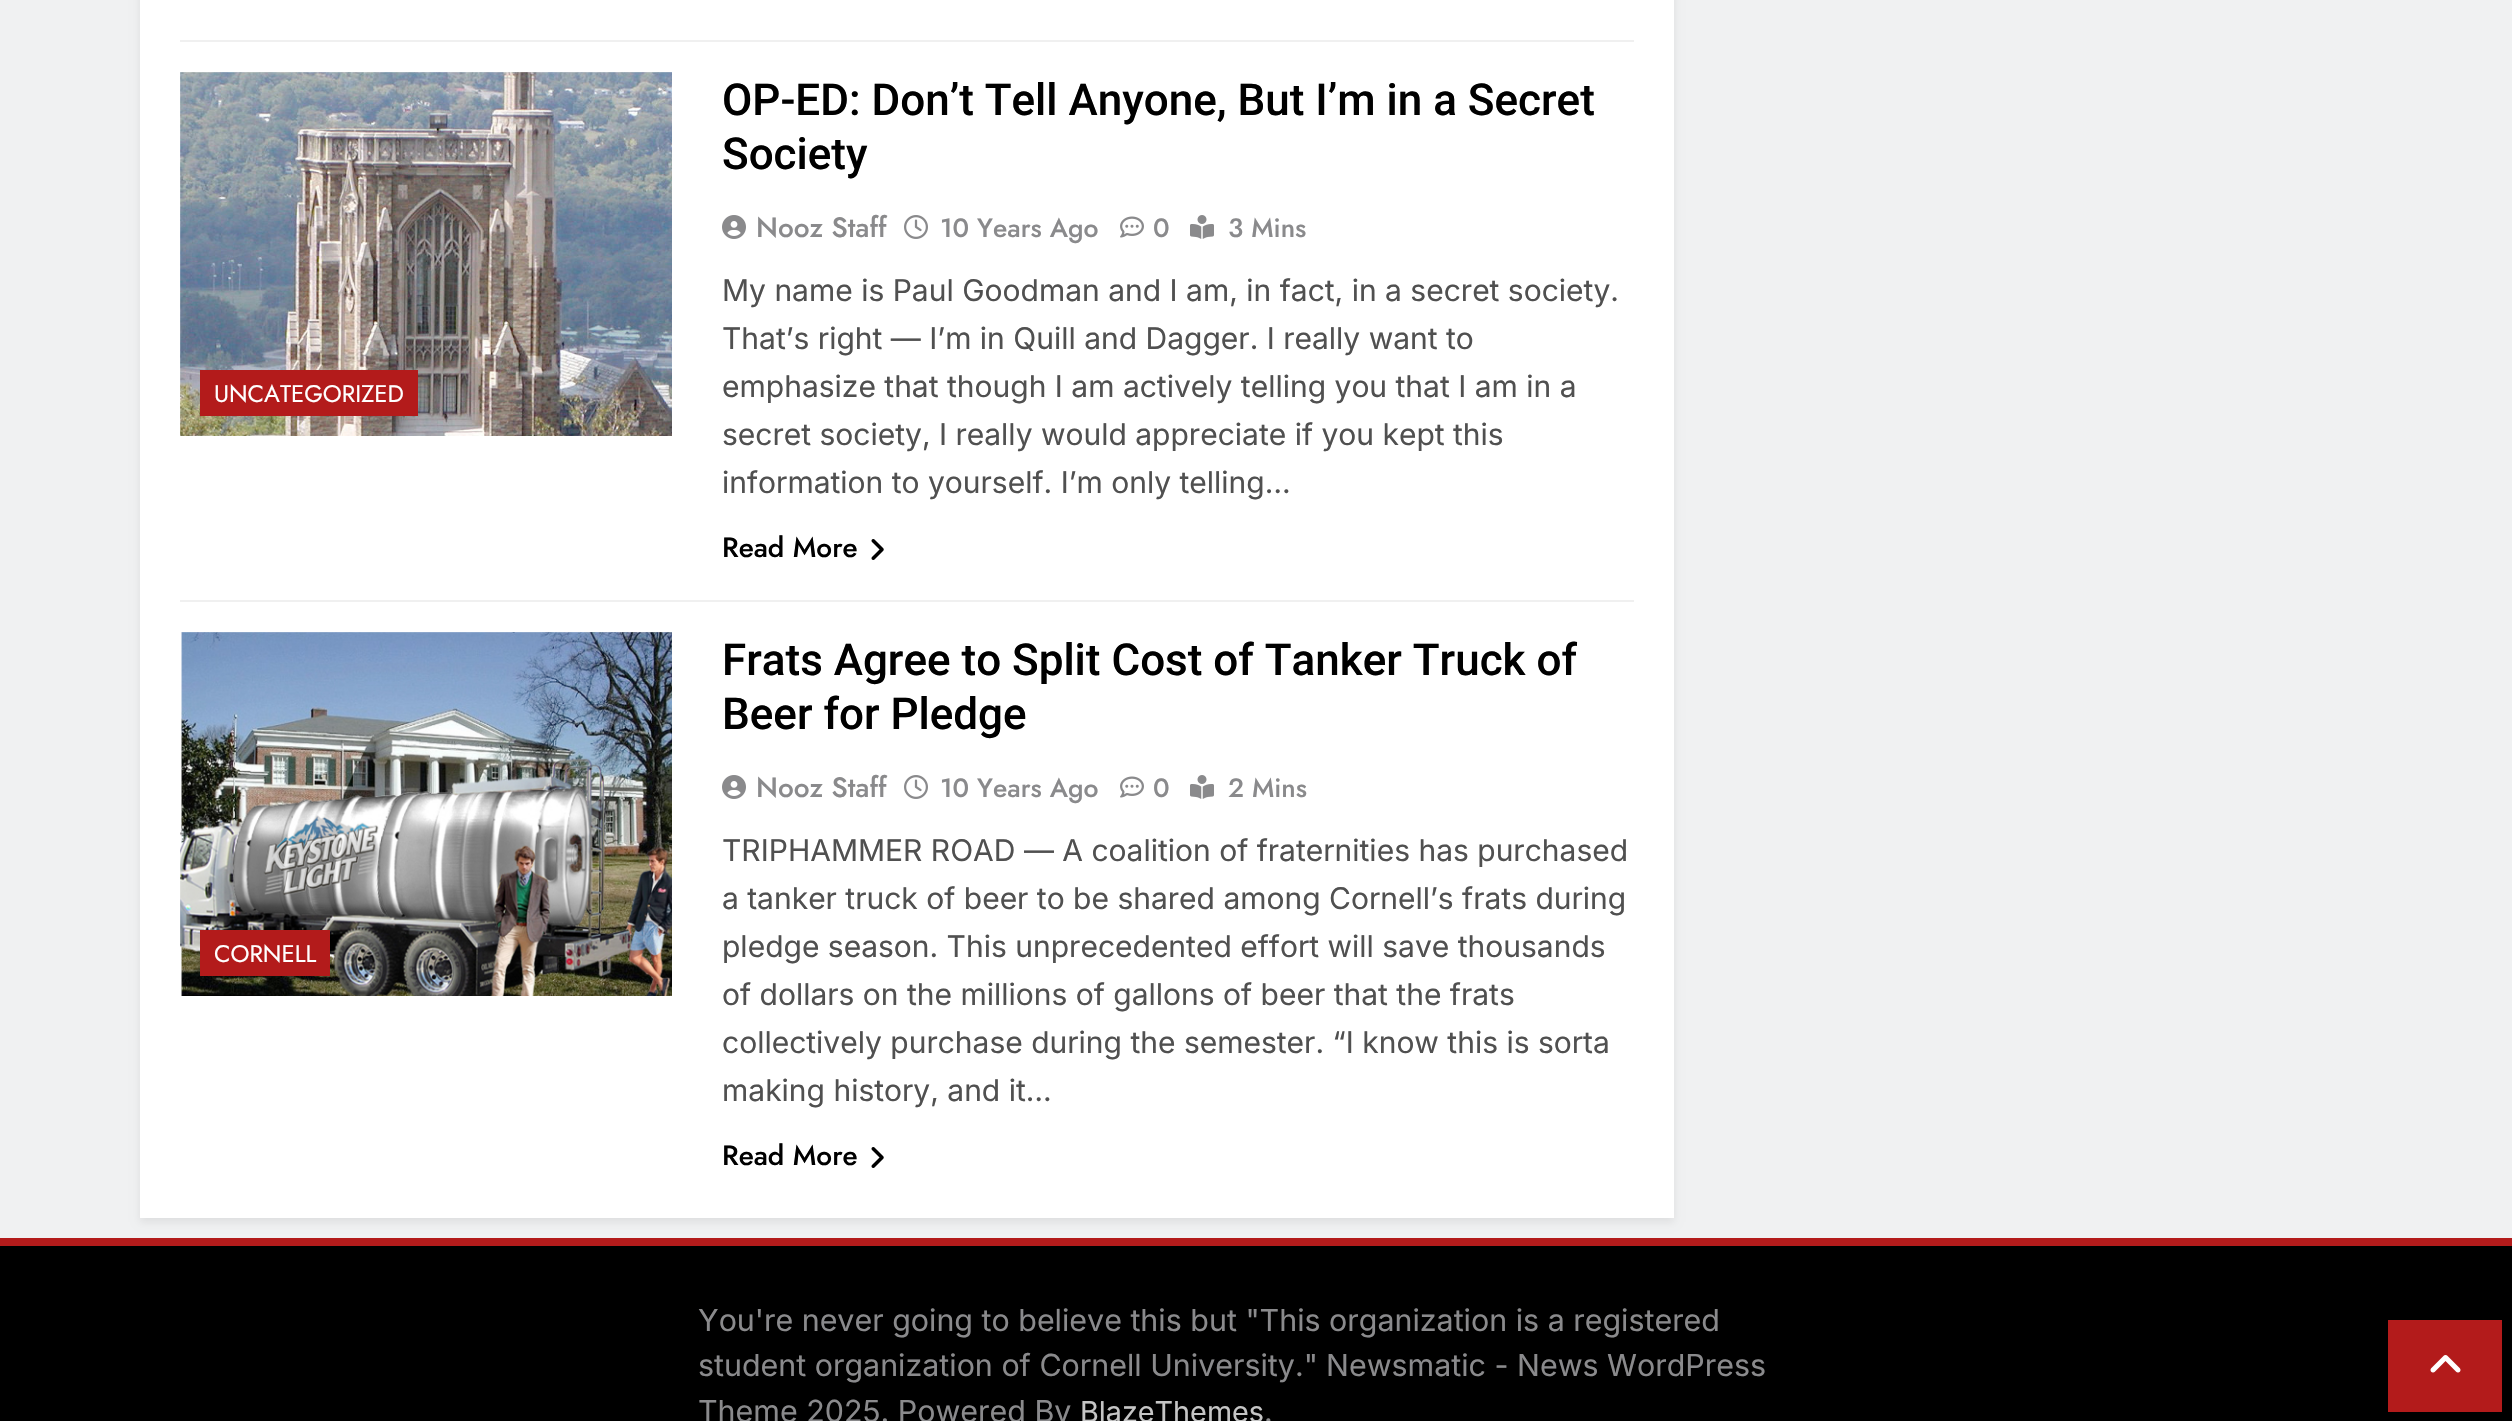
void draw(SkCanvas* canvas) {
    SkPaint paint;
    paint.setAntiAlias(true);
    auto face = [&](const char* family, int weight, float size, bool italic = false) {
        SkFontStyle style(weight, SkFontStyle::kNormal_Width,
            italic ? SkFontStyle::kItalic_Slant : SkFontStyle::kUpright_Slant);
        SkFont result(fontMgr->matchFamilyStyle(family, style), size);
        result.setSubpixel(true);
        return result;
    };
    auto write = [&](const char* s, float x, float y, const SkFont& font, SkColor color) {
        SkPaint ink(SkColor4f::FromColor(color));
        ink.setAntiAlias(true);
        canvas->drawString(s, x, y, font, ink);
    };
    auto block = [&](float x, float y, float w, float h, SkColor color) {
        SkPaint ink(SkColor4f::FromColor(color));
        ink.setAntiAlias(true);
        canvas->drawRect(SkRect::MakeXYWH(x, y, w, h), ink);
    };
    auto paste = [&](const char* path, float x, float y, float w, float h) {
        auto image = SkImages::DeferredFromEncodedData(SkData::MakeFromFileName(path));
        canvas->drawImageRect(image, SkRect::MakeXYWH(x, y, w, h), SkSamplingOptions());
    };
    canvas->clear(SkColorSetRGB(240, 241, 242));
    paint.setColor(SkColorSetARGB(20, 0, 0, 0));
    paint.setMaskFilter(SkMaskFilter::MakeBlur(kNormal_SkBlurStyle, 4));
    canvas->drawRect(SkRect::MakeXYWH(140, -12, 1534, 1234), paint);
    paint.setMaskFilter(nullptr);
    block(140, 0, 1534, 1218, SK_ColorWHITE);
    block(180, 40, 1454, 2, SkColorSetRGB(240, 240, 240));
    block(180, 600, 1454, 2, SkColorSetRGB(240, 240, 240));
    paste("pic1.png", 180, 72, 492, 364);
    block(200, 370, 218, 46, SkColorSetRGB(179, 27, 27));
    auto kFont1 = face("Jost", 400, 24);
    write("UNCATEGORIZED", 214, 402, kFont1, SK_ColorWHITE);
    auto kFont2 = face("Roboto", 500, 44);
    write("OP-ED: Don’t Tell Anyone, But I’m in a Secret", 722, 115, kFont2, SK_ColorBLACK);
    write("Society", 722, 169, kFont2, SK_ColorBLACK);
    paste("pic2.png", 722, 215, 24, 24);
    auto kFont3 = face("Jost", 500, 28);
    write("Nooz Staff", 756, 237, kFont3, SkColorSetRGB(138, 138, 140));
    paste("pic3.png", 904, 215, 24, 24);
    auto kFont4 = face("Jost", 500, 26.5f);
    write("10 Years Ago", 940, 237, kFont4, SkColorSetRGB(138, 138, 140));
    paste("pic4.png", 1120, 216, 24, 22);
    write("0", 1153, 237, kFont4, SkColorSetRGB(138, 138, 140));
    paste("pic5.png", 1190, 215, 24, 24);
    write("3 Mins", 1228, 237, kFont4, SkColorSetRGB(138, 138, 140));
    auto kFont5 = face("Inter", 400, 30);
    write("My name is Paul Goodman and I am, in fact, in a secret society.", 722, 301, kFont5, SkColorSetRGB(80, 80, 80));
    write("That’s right — I’m in Quill and Dagger. I really want to", 722, 349, kFont5, SkColorSetRGB(80, 80, 80));
    write("emphasize that though I am actively telling you that I am in a", 722, 397, kFont5, SkColorSetRGB(80, 80, 80));
    write("secret society, I really would appreciate if you kept this", 722, 445, kFont5, SkColorSetRGB(80, 80, 80));
    write("information to yourself. I’m only telling…", 722, 493, kFont5, SkColorSetRGB(80, 80, 80));
    write("Read More", 722, 557, kFont3, SK_ColorBLACK);
    paste("pic6.png", 871, 539, 13, 21);
    paste("pic7.png", 180, 632, 492, 364);
    block(200, 930, 130, 46, SkColorSetRGB(179, 27, 27));
    write("CORNELL", 214, 962, kFont1, SK_ColorWHITE);
    write("Frats Agree to Split Cost of Tanker Truck of", 722, 675, kFont2, SK_ColorBLACK);
    write("Beer for Pledge", 722, 729, kFont2, SK_ColorBLACK);
    paste("pic2.png", 722, 775, 24, 24);
    write("Nooz Staff", 756, 797, kFont3, SkColorSetRGB(138, 138, 140));
    paste("pic3.png", 904, 775, 24, 24);
    write("10 Years Ago", 940, 797, kFont4, SkColorSetRGB(138, 138, 140));
    paste("pic4.png", 1120, 776, 24, 22);
    write("0", 1153, 797, kFont4, SkColorSetRGB(138, 138, 140));
    paste("pic5.png", 1190, 775, 24, 24);
    write("2 Mins", 1228, 797, kFont4, SkColorSetRGB(138, 138, 140));
    write("TRIPHAMMER ROAD — A coalition of fraternities has purchased", 722, 861, kFont5, SkColorSetRGB(80, 80, 80));
    write("a tanker truck of beer to be shared among Cornell’s frats during", 722, 909, kFont5, SkColorSetRGB(80, 80, 80));
    write("pledge season. This unprecedented effort will save thousands", 722, 957, kFont5, SkColorSetRGB(80, 80, 80));
    write("of dollars on the millions of gallons of beer that the frats", 722, 1005, kFont5, SkColorSetRGB(80, 80, 80));
    write("collectively purchase during the semester. “I know this is sorta", 722, 1053, kFont5, SkColorSetRGB(80, 80, 80));
    write("making history, and it…", 722, 1101, kFont5, SkColorSetRGB(80, 80, 80));
    write("Read More", 722, 1165, kFont3, SK_ColorBLACK);
    paste("pic6.png", 871, 1147, 13, 21);
    block(0, 1238, 2512, 8, SkColorSetRGB(179, 27, 27));
    block(0, 1246, 2512, 175, SK_ColorBLACK);
    auto kFont6 = face("Inter", 400, 30.4f);
    write("You're never going to believe this but \"This organization is a registered", 698, 1331, kFont6, SkColorSetRGB(138, 138, 140));
    write("student organization of Cornell University.\"", 698, 1376, kFont6, SkColorSetRGB(138, 138, 140));
    write("Newsmatic - News WordPress", 1326, 1376, kFont6, SkColorSetRGB(138, 138, 140));
    write("Theme 2025. Powered By", 698, 1422, kFont6, SkColorSetRGB(138, 138, 140));
    auto kFont7 = face("Inter", 400, 28.75f);
    write("BlazeThemes", 1080, 1422, kFont7, SkColorSetRGB(197, 197, 197));
    write(".", 1264, 1422, kFont6, SkColorSetRGB(138, 138, 140));
    block(2388, 1320, 114, 92, SkColorSetRGB(179, 27, 27));
    paste("pic8.png", 2430, 1355, 31, 18);
}
